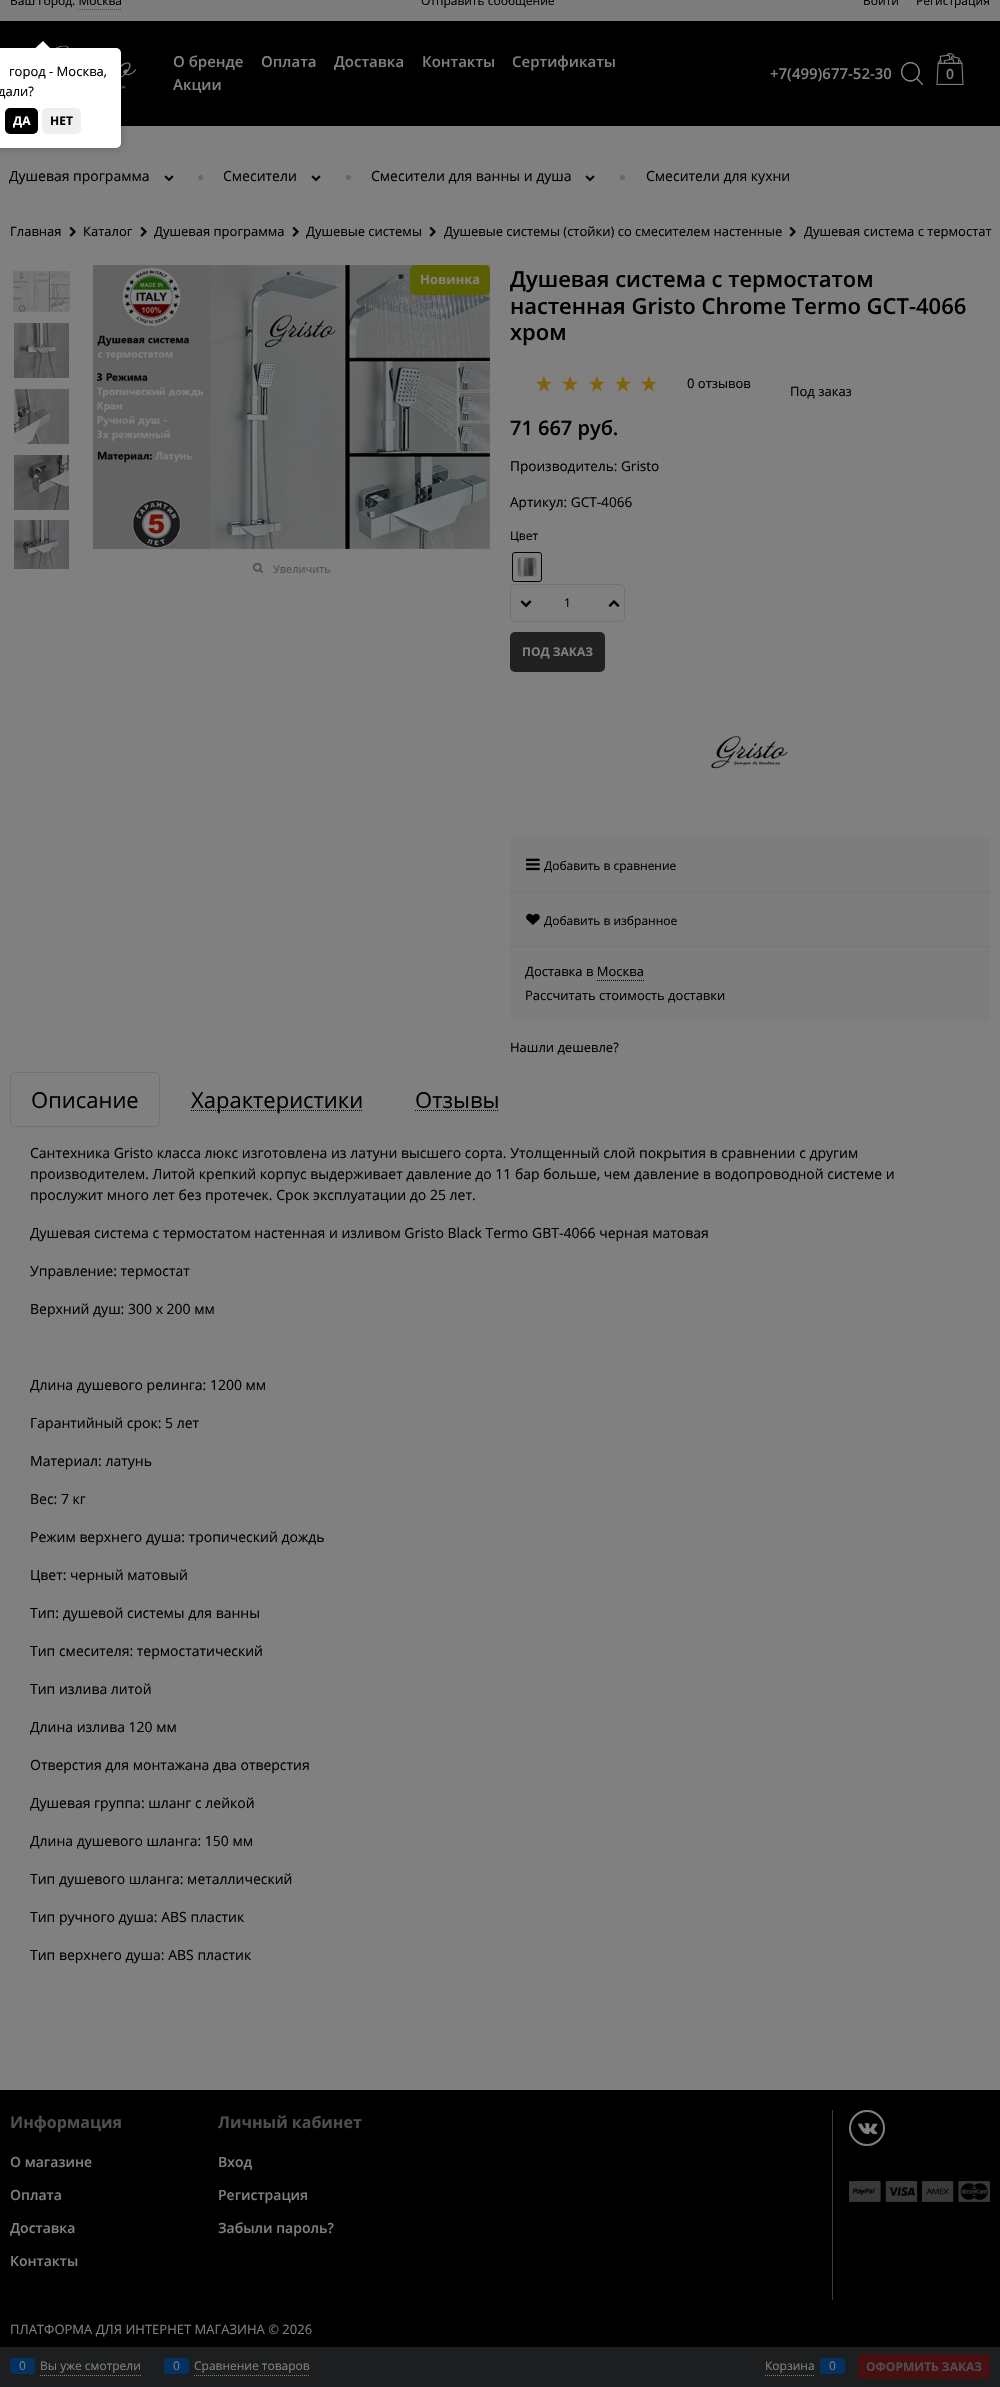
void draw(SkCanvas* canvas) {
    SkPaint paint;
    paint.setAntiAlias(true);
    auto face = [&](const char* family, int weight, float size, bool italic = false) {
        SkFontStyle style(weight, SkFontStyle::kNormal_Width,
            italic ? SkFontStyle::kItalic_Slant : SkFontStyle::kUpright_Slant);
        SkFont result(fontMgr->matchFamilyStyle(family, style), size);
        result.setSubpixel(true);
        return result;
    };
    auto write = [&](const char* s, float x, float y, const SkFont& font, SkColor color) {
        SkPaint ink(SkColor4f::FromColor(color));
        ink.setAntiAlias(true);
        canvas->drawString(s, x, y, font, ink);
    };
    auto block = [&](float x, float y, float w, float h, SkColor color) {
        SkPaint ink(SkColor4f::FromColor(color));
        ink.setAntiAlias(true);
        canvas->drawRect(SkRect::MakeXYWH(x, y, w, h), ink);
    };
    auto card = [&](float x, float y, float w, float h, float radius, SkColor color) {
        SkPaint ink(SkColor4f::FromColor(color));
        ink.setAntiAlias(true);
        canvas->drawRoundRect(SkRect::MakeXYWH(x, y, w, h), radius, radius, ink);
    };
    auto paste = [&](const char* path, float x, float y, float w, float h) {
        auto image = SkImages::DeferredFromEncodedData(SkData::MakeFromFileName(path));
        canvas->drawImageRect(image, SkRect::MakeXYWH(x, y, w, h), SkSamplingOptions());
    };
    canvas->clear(SkColorSetRGB(128, 128, 128));
    block(0, 0, 1000, 21, SkColorSetRGB(125, 125, 125));
    auto kFont1 = face("Open Sans", 400, 12);
    write("Ваш город: Москва", 10, 5, kFont1, SK_ColorBLACK);
    paint.setStyle(SkPaint::kStroke_Style);
    paint.setStrokeWidth(1);
    paint.setColor(SkColorSetRGB(74, 75, 78));
    paint.setPathEffect(SkDashPathEffect::Make({{1, 1}}, 0));
    canvas->drawPath(SkPathBuilder().moveTo(78, 9.5f).lineTo(122, 9.5f).detach(), paint);
    paint.setPathEffect(nullptr);
    write("Отправить сообщение", 421, 5, kFont1, SK_ColorBLACK);
    write("Войти", 863, 5, kFont1, SK_ColorBLACK);
    write("Регистрация", 916, 5, kFont1, SK_ColorBLACK);
    block(0, 21, 1000, 105, SK_ColorBLACK);
    paste("pic1.png", 28, 45, 108, 49);
    auto kFont2 = face("Open Sans", 600, 15);
    write("О бренде", 173, 67, kFont2, SkColorSetRGB(128, 128, 128));
    write("Оплата", 261, 67, kFont2, SkColorSetRGB(128, 128, 128));
    write("Доставка", 334, 67, kFont2, SkColorSetRGB(128, 128, 128));
    write("Контакты", 422, 67, kFont2, SkColorSetRGB(128, 128, 128));
    write("Сертификаты", 512, 67, kFont2, SkColorSetRGB(128, 128, 128));
    write("Акции", 173, 90, kFont2, SkColorSetRGB(128, 128, 128));
    write("+7(499)677-52-30", 770, 79, kFont2, SkColorSetRGB(128, 128, 128));
    paste("pic2.png", 901, 62, 22, 23);
    paste("pic3.png", 936, 53, 28, 32);
    auto kFont3 = face("Open Sans", 600, 14);
    write("0", 946, 79, kFont3, SkColorSetRGB(128, 128, 128));
    auto kFont4 = face("Open Sans", 400, 14);
    write("Душевая программа", 9, 181, kFont4, SK_ColorBLACK);
    paste("pic4.png", 164, 175, 10, 7);
    paint.setStyle(SkPaint::kFill_Style);
    paint.setColor(SkColorSetRGB(102, 102, 102));
    canvas->drawCircle(200.5f, 177.5f, 2.5f, paint);
    write("Смесители", 223, 181, kFont4, SK_ColorBLACK);
    paste("pic4.png", 311, 175, 10, 7);
    canvas->drawCircle(348.5f, 177.5f, 2.5f, paint);
    write("Смесители для ванны и душа", 371, 181, kFont4, SK_ColorBLACK);
    paste("pic4.png", 585, 175, 10, 7);
    canvas->drawCircle(622.5f, 177.5f, 2.5f, paint);
    write("Смесители для кухни", 646, 181, kFont4, SK_ColorBLACK);
    auto kFont5 = face("Open Sans", 400, 13);
    write("Главная", 10, 236, kFont5, SK_ColorBLACK);
    paste("pic5.png", 69, 226, 7, 11);
    write("Каталог", 83, 236, kFont5, SK_ColorBLACK);
    paste("pic5.png", 140, 226, 7, 11);
    write("Душевая программа", 154, 236, kFont5, SK_ColorBLACK);
    paste("pic5.png", 292, 226, 7, 11);
    write("Душевые системы", 306, 236, kFont5, SK_ColorBLACK);
    paste("pic5.png", 429, 226, 7, 11);
    write("Душевые системы (стойки) со смесителем настенные", 444, 236, kFont5, SK_ColorBLACK);
    paste("pic5.png", 789, 226, 7, 11);
    write("Душевая система с термостат", 804, 236, kFont5, SK_ColorBLACK);
    paste("pic6.png", 13, 271, 57, 42);
    paste("pic7.png", 14, 323, 55, 55);
    paste("pic8.png", 14, 389, 55, 55);
    paste("pic9.png", 14, 455, 55, 55);
    paste("pic10.png", 14, 520, 55, 49);
    paste("pic11.png", 93, 265, 397, 284);
    card(410, 265, 80, 30, 5, SkColorSetRGB(90, 95, 4));
    auto kFont6 = face("Open Sans", 700, 13);
    write("Новинка", 420, 284, kFont6, SkColorSetRGB(128, 128, 128));
    paste("pic12.png", 253, 562, 11, 12);
    auto kFont7 = face("Open Sans", 400, 11);
    write("Увеличить", 273, 573, kFont7, SkColorSetRGB(78, 78, 78));
    auto kFont8 = face("Open Sans", 600, 22);
    write("Душевая система с термостатом", 510, 287, kFont8, SK_ColorBLACK);
    write("настенная Gristo Chrome Termo GCT-4066", 510, 314, kFont8, SK_ColorBLACK);
    write("хром", 510, 340, kFont8, SK_ColorBLACK);
    paste("pic13.png", 536, 376, 16, 16);
    paste("pic13.png", 562, 376, 16, 16);
    paste("pic13.png", 589, 376, 16, 16);
    paste("pic13.png", 615, 376, 16, 16);
    paste("pic13.png", 641, 376, 16, 16);
    write("0 отзывов", 687, 388, kFont5, SK_ColorBLACK);
    write("Под заказ", 790, 396, kFont5, SK_ColorBLACK);
    auto kFont9 = face("Open Sans", 600, 20);
    write("71 667 руб.", 510, 435, kFont9, SK_ColorBLACK);
    auto kFont10 = face("Open Sans", 400, 13.6f);
    write("Производитель: Gristo", 510, 471, kFont10, SK_ColorBLACK);
    write("Артикул: GCT-4066", 510, 507, kFont10, SK_ColorBLACK);
    write("Цвет", 510, 540, kFont1, SK_ColorBLACK);
    paint.setStyle(SkPaint::kStroke_Style);
    paint.setColor(SK_ColorBLACK);
    canvas->drawRoundRect(SkRect::MakeXYWH(512.5f, 552.5f, 29, 29), 2.5f, 2.5f, paint);
    paste("pic14.png", 518, 558, 18, 18);
    paint.setColor(SkColorSetRGB(114, 114, 114));
    canvas->drawRoundRect(SkRect::MakeXYWH(517.5f, 557.5f, 19, 19), 2.5f, 2.5f, paint);
    paint.setColor(SkColorSetRGB(113, 114, 114));
    canvas->drawRoundRect(SkRect::MakeXYWH(510.5f, 584.5f, 114, 37), 4.5f, 4.5f, paint);
    write("1", 564, 607, kFont1, SK_ColorBLACK);
    paste("pic15.png", 520, 600, 12, 8);
    paste("pic16.png", 608, 600, 12, 7);
    card(510, 632, 95, 40, 5, SkColorSetRGB(34, 33, 33));
    auto kFont11 = face("Open Sans", 700, 12);
    write("ПОД ЗАКАЗ", 522, 656, kFont11, SkColorSetRGB(128, 128, 128));
    paste("pic17.png", 711, 736, 77, 33);
    card(510, 837, 480, 184, 5, SkColorSetRGB(125, 125, 125));
    block(510, 891, 480, 1, SkColorSetRGB(117, 117, 117));
    paste("pic18.png", 526, 858, 14, 13);
    write("Добавить в сравнение", 544, 870, kFont1, SK_ColorBLACK);
    block(510, 946, 480, 1, SkColorSetRGB(117, 117, 117));
    paste("pic19.png", 526, 913, 14, 12);
    write("Добавить в избранное", 544, 925, kFont1, SK_ColorBLACK);
    write("Доставка в Москва", 525, 976, kFont5, SK_ColorBLACK);
    paint.setColor(SK_ColorBLACK);
    paint.setPathEffect(SkDashPathEffect::Make({{1, 1}}, 0));
    canvas->drawPath(SkPathBuilder().moveTo(597, 980.5f).lineTo(644, 980.5f).detach(), paint);
    paint.setPathEffect(nullptr);
    write("Рассчитать стоимость доставки", 525, 1000, kFont5, SK_ColorBLACK);
    write("Нашли дешевле?", 510, 1052, kFont5, SK_ColorBLACK);
    paint.setColor(SkColorSetRGB(114, 114, 114));
    canvas->drawRoundRect(SkRect::MakeXYWH(10.5f, 1072.5f, 149, 54), 4.5f, 4.5f, paint);
    auto kFont12 = face("Open Sans", 400, 22);
    write("Описание", 31, 1108, kFont12, SK_ColorBLACK);
    paint.setColor(SK_ColorBLACK);
    paint.setPathEffect(SkDashPathEffect::Make({{1, 1}}, 0));
    canvas->drawPath(SkPathBuilder().moveTo(191, 1110.5f).lineTo(363, 1110.5f).detach(), paint);
    paint.setPathEffect(nullptr);
    write("Характеристики", 191, 1108, kFont12, SK_ColorBLACK);
    paint.setPathEffect(SkDashPathEffect::Make({{1, 1}}, 0));
    canvas->drawPath(SkPathBuilder().moveTo(415, 1110.5f).lineTo(499, 1110.5f).detach(), paint);
    paint.setPathEffect(nullptr);
    write("Отзывы", 415, 1108, kFont12, SK_ColorBLACK);
    write("Сантехника Gristo класса люкс изготовлена из латуни высшего сорта. Утолщенный слой покрытия в сравнении с другим", 30, 1158, kFont4, SK_ColorBLACK);
    write("производителем. Литой крепкий корпус выдерживает давление до 11 бар больше, чем давление в водопроводной системе и", 30, 1179, kFont4, SK_ColorBLACK);
    write("прослужит много лет без протечек. Срок эксплуатации до 25 лет.", 30, 1200, kFont4, SK_ColorBLACK);
    write("Душевая система с термостатом настенная и изливом Gristo Black Termo GBT-4066 черная матовая", 30, 1238, kFont4, SK_ColorBLACK);
    write("Управление: термостат", 30, 1276, kFont4, SK_ColorBLACK);
    write("Верхний душ: 300 x 200 мм", 30, 1314, kFont4, SK_ColorBLACK);
    write("Длина душевого релинга: 1200 мм", 30, 1390, kFont4, SK_ColorBLACK);
    write("Гарантийный срок: 5 лет", 30, 1428, kFont4, SK_ColorBLACK);
    write("Материал: латунь", 30, 1466, kFont4, SK_ColorBLACK);
    write("Вес: 7 кг", 30, 1504, kFont4, SK_ColorBLACK);
    write("Режим верхнего душа: тропический дождь", 30, 1542, kFont4, SK_ColorBLACK);
    write("Цвет: черный матовый", 30, 1580, kFont4, SK_ColorBLACK);
    write("Тип: душевой системы для ванны", 30, 1618, kFont4, SK_ColorBLACK);
    write("Тип смесителя: термостатический", 30, 1656, kFont4, SK_ColorBLACK);
    write("Тип излива литой", 30, 1694, kFont4, SK_ColorBLACK);
    write("Длина излива 120 мм", 30, 1732, kFont4, SK_ColorBLACK);
    write("Отверстия для монтажана два отверстия", 30, 1770, kFont4, SK_ColorBLACK);
    write("Душевая группа: шланг с лейкой", 30, 1808, kFont4, SK_ColorBLACK);
    write("Длина душевого шланга: 150 мм", 30, 1846, kFont4, SK_ColorBLACK);
    write("Тип душевого шланга: металлический", 30, 1884, kFont4, SK_ColorBLACK);
    write("Тип ручного душа: ABS пластик", 30, 1922, kFont4, SK_ColorBLACK);
    write("Тип верхнего душа: ABS пластик", 30, 1960, kFont4, SK_ColorBLACK);
    block(0, 2090, 1000, 257, SK_ColorBLACK);
    block(832, 2110, 1, 190, SkColorSetRGB(60, 60, 60));
    auto kFont13 = face("Open Sans", 700, 16);
    write("Информация", 10, 2128, kFont13, SkColorSetRGB(78, 78, 78));
    write("О магазине", 10, 2167, kFont3, SkColorSetRGB(128, 128, 128));
    write("Оплата", 10, 2200, kFont3, SkColorSetRGB(128, 128, 128));
    write("Доставка", 10, 2233, kFont3, SkColorSetRGB(128, 128, 128));
    write("Контакты", 10, 2266, kFont3, SkColorSetRGB(128, 128, 128));
    write("Личный кабинет", 218, 2128, kFont13, SkColorSetRGB(78, 78, 78));
    write("Вход", 218, 2167, kFont3, SkColorSetRGB(128, 128, 128));
    write("Регистрация", 218, 2200, kFont3, SkColorSetRGB(128, 128, 128));
    write("Забыли пароль?", 218, 2233, kFont3, SkColorSetRGB(128, 128, 128));
    paint.setStrokeWidth(2);
    paint.setColor(SkColorSetRGB(128, 128, 128));
    canvas->drawCircle(867, 2128, 17, paint);
    paste("pic20.png", 858, 2123, 20, 12);
    paste("pic21.png", 849, 2181, 141, 21);
    write("ПЛАТФОРМА ДЛЯ ИНТЕРНЕТ МАГАЗИНА © 2026", 10, 2334, kFont5, SkColorSetRGB(128, 128, 128));
    block(0, 2347, 1000, 40, SkColorSetRGB(28, 30, 32));
    paint.setStrokeWidth(1);
    paint.setPathEffect(SkDashPathEffect::Make({{1, 1}}, 0));
    canvas->drawPath(SkPathBuilder().moveTo(40, 2375.5f).lineTo(141, 2375.5f).detach(), paint);
    paint.setPathEffect(nullptr);
    card(10, 2358, 25, 16, 3, SkColorSetRGB(3, 49, 97));
    write("0", 19, 2370, kFont1, SkColorSetRGB(128, 128, 128));
    write("Вы уже смотрели", 40, 2370, kFont1, SkColorSetRGB(128, 128, 128));
    paint.setPathEffect(SkDashPathEffect::Make({{1, 1}}, 0));
    canvas->drawPath(SkPathBuilder().moveTo(194, 2375.5f).lineTo(310, 2375.5f).detach(), paint);
    paint.setPathEffect(nullptr);
    card(164, 2358, 25, 16, 3, SkColorSetRGB(3, 49, 97));
    write("0", 173, 2370, kFont1, SkColorSetRGB(128, 128, 128));
    write("Сравнение товаров", 194, 2370, kFont1, SkColorSetRGB(128, 128, 128));
    paint.setPathEffect(SkDashPathEffect::Make({{1, 1}}, 0));
    canvas->drawPath(SkPathBuilder().moveTo(765, 2375.5f).lineTo(815, 2375.5f).detach(), paint);
    paint.setPathEffect(nullptr);
    write("Корзина", 765, 2370, kFont1, SkColorSetRGB(128, 128, 128));
    card(820, 2358, 25, 16, 3, SkColorSetRGB(3, 49, 97));
    write("0", 829, 2370, kFont1, SkColorSetRGB(128, 128, 128));
    card(858, 2354, 132, 25, 5, SkColorSetRGB(71, 15, 16));
    write("ОФОРМИТЬ ЗАКАЗ", 866, 2371, kFont11, SkColorSetRGB(78, 78, 78));
    paint.setStyle(SkPaint::kFill_Style);
    paint.setColor(SkColorSetARGB(64, 0, 0, 0));
    paint.setMaskFilter(SkMaskFilter::MakeBlur(kNormal_SkBlurStyle, 4.5f));
    canvas->drawRoundRect(SkRect::MakeXYWH(-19, 48, 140, 100), 5, 5, paint);
    paint.setMaskFilter(nullptr);
    card(-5, 48, 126, 100, 5, SK_ColorWHITE);
    canvas->save();
    canvas->clipRect(SkRect::MakeXYWH(0, 39, 121, 9));
    paint.setColor(SK_ColorWHITE);
    canvas->drawPath(SkPathBuilder().moveTo(43, 41).lineTo(50, 48).lineTo(43, 55).lineTo(35.5f, 48).close().detach(), paint);
    canvas->restore();
    write("город - Москва,", 9, 76, kFont5, SK_ColorBLACK);
    write("дали?", -2, 96, kFont5, SK_ColorBLACK);
    card(5, 108, 33, 26, 5, SK_ColorBLACK);
    write("ДА", 13, 125, kFont11, SK_ColorWHITE);
    card(42, 108, 39, 26, 5, SkColorSetRGB(239, 239, 239));
    write("НЕТ", 50, 125, kFont11, SK_ColorBLACK);
}
